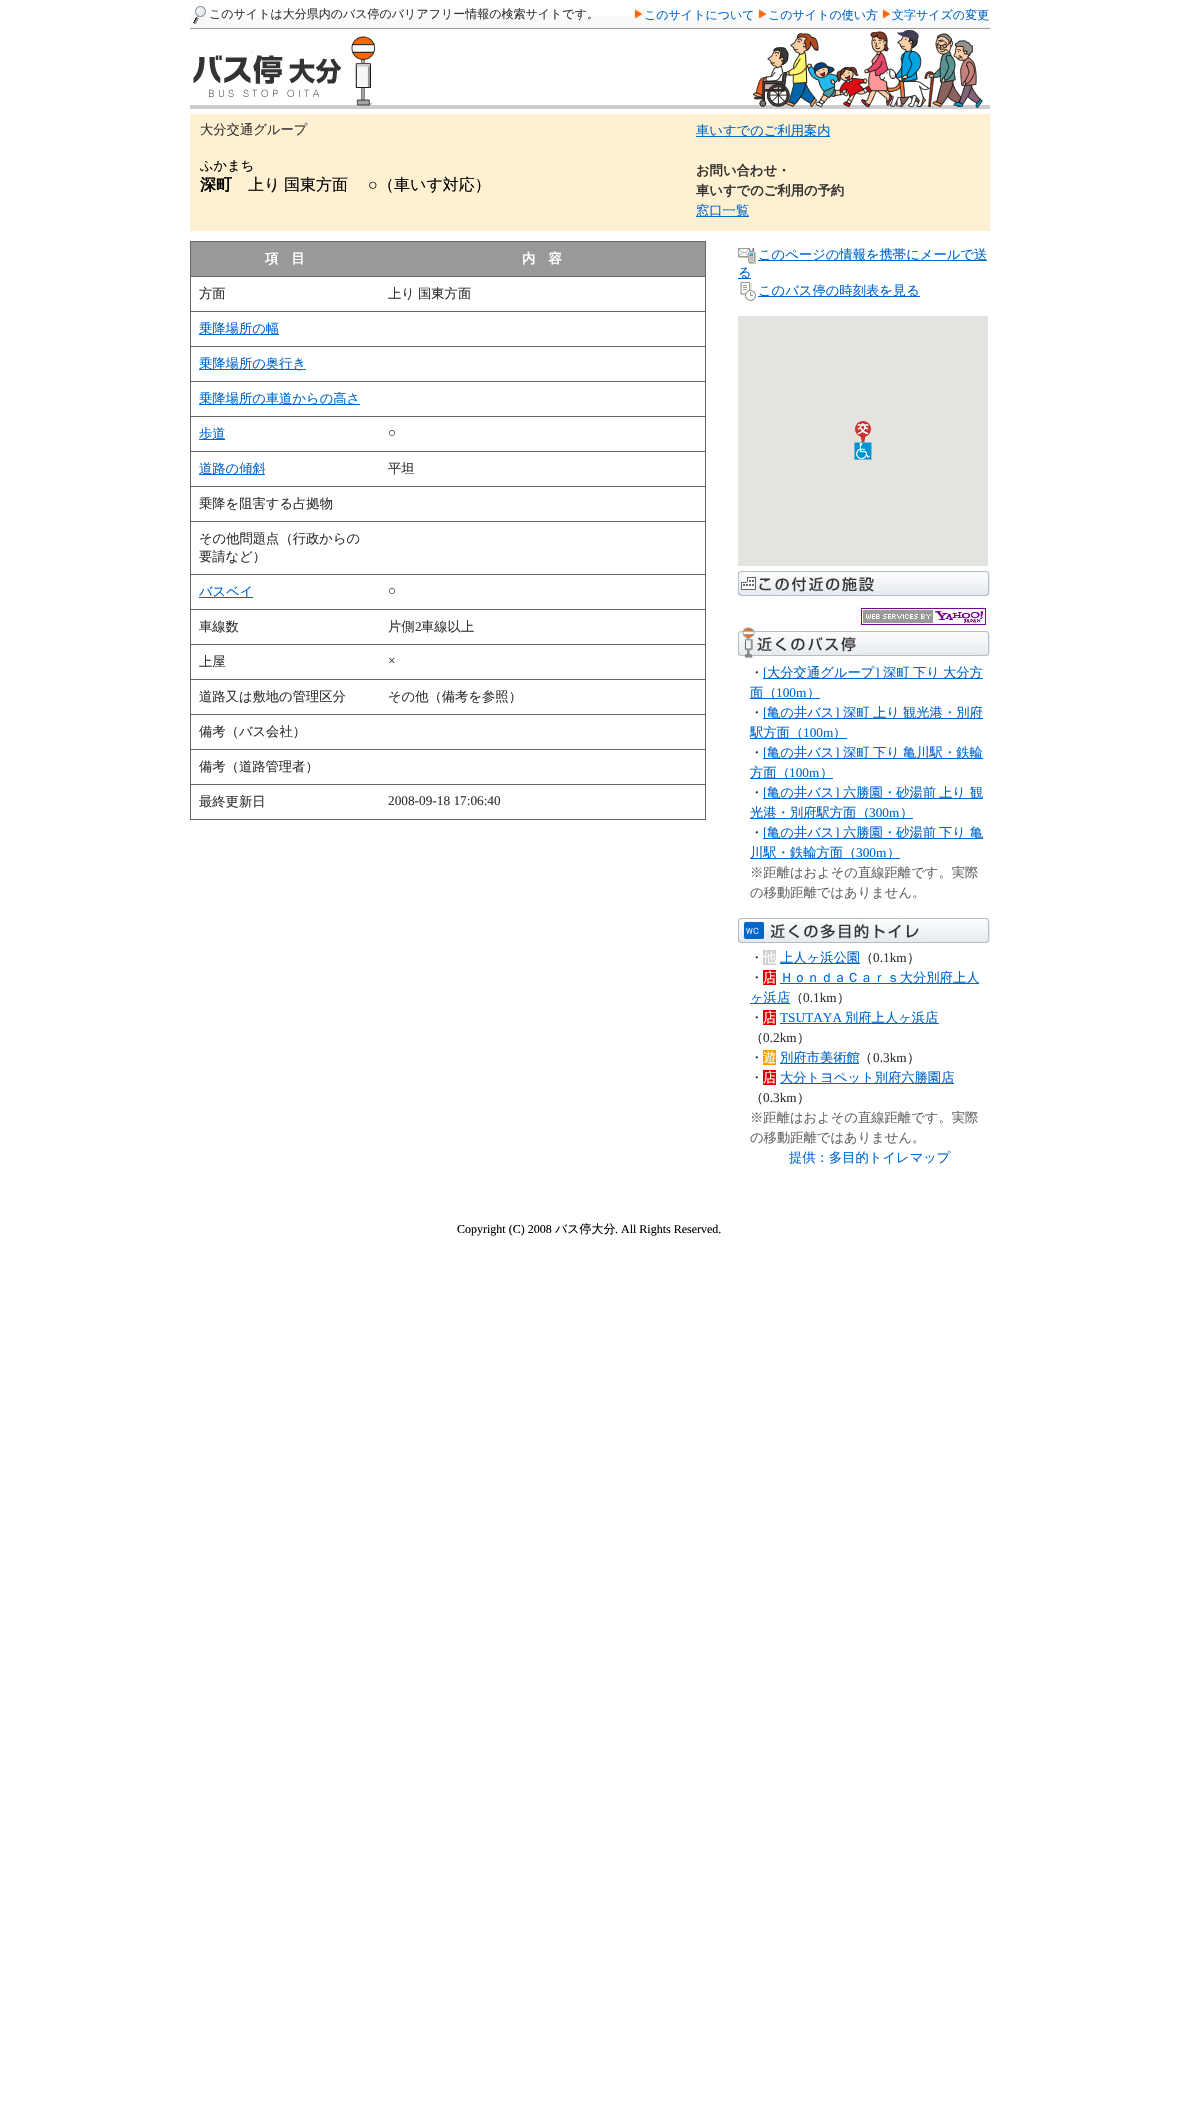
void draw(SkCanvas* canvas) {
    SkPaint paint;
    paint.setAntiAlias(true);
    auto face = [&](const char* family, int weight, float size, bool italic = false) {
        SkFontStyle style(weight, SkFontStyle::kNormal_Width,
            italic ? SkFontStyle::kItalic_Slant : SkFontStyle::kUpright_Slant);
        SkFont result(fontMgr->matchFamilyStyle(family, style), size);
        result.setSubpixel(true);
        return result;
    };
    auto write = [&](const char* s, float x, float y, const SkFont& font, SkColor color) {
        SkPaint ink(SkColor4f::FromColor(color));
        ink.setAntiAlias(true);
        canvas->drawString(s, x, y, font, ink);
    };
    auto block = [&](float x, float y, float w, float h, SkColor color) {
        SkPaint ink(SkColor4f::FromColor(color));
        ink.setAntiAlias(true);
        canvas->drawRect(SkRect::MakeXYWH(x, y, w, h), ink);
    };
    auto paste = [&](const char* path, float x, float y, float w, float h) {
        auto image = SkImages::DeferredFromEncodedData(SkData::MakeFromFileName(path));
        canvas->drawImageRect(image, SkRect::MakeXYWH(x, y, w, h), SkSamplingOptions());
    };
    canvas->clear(SK_ColorWHITE);
    paste("pic1.png", 190, 16, 800, 13);
    paste("pic2.png", 193, 6, 13, 18);
    auto kFont1 = face("WenQuanYi Zen Hei", 500, 12);
    write("このサイトは大分県内のバス停のバリアフリー情報の検索サイトです。", 209, 18, kFont1, SkColorSetRGB(51, 51, 51));
    paste("pic3.png", 633, 9, 11, 10);
    write("このサイトについて", 644, 19, kFont1, SkColorSetRGB(0, 102, 204));
    paste("pic3.png", 757, 9, 11, 10);
    write("このサイトの使い方", 768, 19, kFont1, SkColorSetRGB(0, 102, 204));
    paste("pic3.png", 881, 9, 11, 10);
    write("文字サイズの変更", 892, 19, kFont1, SkColorSetRGB(0, 102, 204));
    paste("pic4.png", 190, 30, 800, 79);
    block(190, 114, 800, 117, SkColorSetRGB(254, 240, 209));
    auto kFont2 = face("WenQuanYi Zen Hei", 500, 13.3f);
    write("大分交通グループ", 200, 134, kFont2, SkColorSetRGB(51, 51, 51));
    write("ふかまち", 200, 170, kFont2, SK_ColorBLACK);
    auto kFont3 = face("WenQuanYi Zen Hei", 700, 16);
    write("深町", 200, 190, kFont3, SK_ColorBLACK);
    auto kFont4 = face("WenQuanYi Zen Hei", 500, 16);
    write("上り", 248, 190, kFont4, SK_ColorBLACK);
    write("国東方面", 284, 190, kFont4, SK_ColorBLACK);
    auto kFont5 = face("Liberation Serif", 400, 16);
    write("○", 368, 190, kFont5, SK_ColorBLACK);
    write("（車いす対応）", 378, 190, kFont4, SK_ColorBLACK);
    block(696, 136, 134, 1, SkColorSetRGB(0, 102, 204));
    write("車いすでのご利用案内", 696, 135, kFont2, SkColorSetRGB(0, 102, 204));
    auto kFont6 = face("WenQuanYi Zen Hei", 700, 13.3f);
    write("お問い合わせ・", 696, 175, kFont6, SkColorSetRGB(51, 51, 51));
    write("車いすでのご利用の予約", 696, 195, kFont6, SkColorSetRGB(51, 51, 51));
    block(696, 216, 53, 1, SkColorSetRGB(0, 102, 204));
    write("窓口一覧", 696, 215, kFont2, SkColorSetRGB(0, 102, 204));
    block(190, 241, 516, 579, SkColorSetRGB(102, 102, 102));
    block(191, 242, 514, 34, SkColorSetRGB(153, 153, 153));
    write("項　目", 265, 263, kFont6, SK_ColorWHITE);
    write("内　容", 522, 263, kFont6, SK_ColorWHITE);
    block(191, 277, 514, 34, SK_ColorWHITE);
    write("方面", 199, 298, kFont2, SkColorSetRGB(51, 51, 51));
    write("上り", 388, 298, kFont2, SkColorSetRGB(51, 51, 51));
    write("国東方面", 418, 298, kFont2, SkColorSetRGB(51, 51, 51));
    block(191, 312, 514, 34, SK_ColorWHITE);
    block(199, 334, 80, 1, SkColorSetRGB(0, 102, 204));
    write("乗降場所の幅", 199, 333, kFont2, SkColorSetRGB(0, 102, 204));
    block(191, 347, 514, 34, SK_ColorWHITE);
    block(199, 369, 107, 1, SkColorSetRGB(0, 102, 204));
    write("乗降場所の奥行き", 199, 368, kFont2, SkColorSetRGB(0, 102, 204));
    block(191, 382, 514, 34, SK_ColorWHITE);
    block(199, 404, 161, 1, SkColorSetRGB(0, 102, 204));
    write("乗降場所の車道からの高さ", 199, 403, kFont2, SkColorSetRGB(0, 102, 204));
    block(191, 417, 514, 34, SK_ColorWHITE);
    block(199, 439, 26, 1, SkColorSetRGB(0, 102, 204));
    write("歩道", 199, 438, kFont2, SkColorSetRGB(0, 102, 204));
    auto kFont7 = face("Liberation Serif", 400, 13.3f);
    write("○", 388, 437, kFont7, SkColorSetRGB(51, 51, 51));
    block(191, 452, 514, 34, SK_ColorWHITE);
    block(199, 474, 66, 1, SkColorSetRGB(0, 102, 204));
    write("道路の傾斜", 199, 473, kFont2, SkColorSetRGB(0, 102, 204));
    write("平坦", 388, 473, kFont2, SkColorSetRGB(51, 51, 51));
    block(191, 487, 514, 34, SK_ColorWHITE);
    write("乗降を阻害する占拠物", 199, 508, kFont2, SkColorSetRGB(51, 51, 51));
    block(191, 522, 514, 52, SK_ColorWHITE);
    write("その他問題点（行政からの", 199, 543, kFont2, SkColorSetRGB(51, 51, 51));
    write("要請など）", 199, 561, kFont2, SkColorSetRGB(51, 51, 51));
    block(191, 575, 514, 34, SK_ColorWHITE);
    block(199, 597, 54, 1, SkColorSetRGB(0, 102, 204));
    write("バスベイ", 199, 596, kFont2, SkColorSetRGB(0, 102, 204));
    write("○", 388, 595, kFont7, SkColorSetRGB(51, 51, 51));
    block(191, 610, 514, 34, SK_ColorWHITE);
    write("車線数", 199, 631, kFont2, SkColorSetRGB(51, 51, 51));
    write("片側", 388, 631, kFont2, SkColorSetRGB(51, 51, 51));
    write("2", 415, 631, kFont7, SkColorSetRGB(51, 51, 51));
    write("車線以上", 421, 631, kFont2, SkColorSetRGB(51, 51, 51));
    block(191, 645, 514, 34, SK_ColorWHITE);
    write("上屋", 199, 666, kFont2, SkColorSetRGB(51, 51, 51));
    write("×", 388, 665, kFont7, SkColorSetRGB(51, 51, 51));
    block(191, 680, 514, 34, SK_ColorWHITE);
    write("道路又は敷地の管理区分", 199, 701, kFont2, SkColorSetRGB(51, 51, 51));
    write("その他（備考を参照）", 388, 701, kFont2, SkColorSetRGB(51, 51, 51));
    block(191, 715, 514, 34, SK_ColorWHITE);
    write("備考（バス会社）", 199, 736, kFont2, SkColorSetRGB(51, 51, 51));
    block(191, 750, 514, 34, SK_ColorWHITE);
    write("備考（道路管理者）", 199, 771, kFont2, SkColorSetRGB(51, 51, 51));
    block(191, 785, 514, 34, SK_ColorWHITE);
    write("最終更新日", 199, 806, kFont2, SkColorSetRGB(51, 51, 51));
    write("2008-09-18 17:06:40", 388, 805, kFont7, SkColorSetRGB(51, 51, 51));
    paste("pic5.png", 738, 248, 18, 16);
    block(758, 260, 229, 1, SkColorSetRGB(0, 102, 204));
    write("このページの情報を携帯にメールで送", 758, 259, kFont2, SkColorSetRGB(0, 102, 204));
    block(738, 278, 13, 1, SkColorSetRGB(0, 102, 204));
    write("る", 738, 277, kFont2, SkColorSetRGB(0, 102, 204));
    paste("pic6.png", 740, 282, 16, 19);
    block(758, 296, 162, 1, SkColorSetRGB(0, 102, 204));
    write("このバス停の時刻表を見る", 758, 295, kFont2, SkColorSetRGB(0, 102, 204));
    block(738, 316, 250, 250, SkColorSetRGB(229, 227, 223));
    paste("pic7.png", 854, 421, 18, 39);
    paste("pic8.png", 738, 571, 252, 25);
    paste("pic9.png", 858, 606, 128, 21);
    paste("pic10.png", 738, 627, 252, 31);
    write("・", 750, 677, kFont2, SkColorSetRGB(51, 51, 51));
    block(763, 678, 220, 1, SkColorSetRGB(0, 102, 204));
    write("[", 763, 677, kFont7, SkColorSetRGB(0, 102, 204));
    write("大分交通グループ", 767, 677, kFont2, SkColorSetRGB(0, 102, 204));
    write("]", 875, 677, kFont7, SkColorSetRGB(0, 102, 204));
    write("深町", 883, 677, kFont2, SkColorSetRGB(0, 102, 204));
    write("下り", 913, 677, kFont2, SkColorSetRGB(0, 102, 204));
    write("大分方", 943, 677, kFont2, SkColorSetRGB(0, 102, 204));
    block(750, 698, 70, 1, SkColorSetRGB(0, 102, 204));
    write("面（", 750, 697, kFont2, SkColorSetRGB(0, 102, 204));
    write("100m", 776, 697, kFont7, SkColorSetRGB(0, 102, 204));
    write("）", 807, 697, kFont2, SkColorSetRGB(0, 102, 204));
    write("・", 750, 717, kFont2, SkColorSetRGB(51, 51, 51));
    block(763, 718, 220, 1, SkColorSetRGB(0, 102, 204));
    write("[", 763, 717, kFont7, SkColorSetRGB(0, 102, 204));
    write("亀の井バス", 767, 717, kFont2, SkColorSetRGB(0, 102, 204));
    write("]", 835, 717, kFont7, SkColorSetRGB(0, 102, 204));
    write("深町", 843, 717, kFont2, SkColorSetRGB(0, 102, 204));
    write("上り", 873, 717, kFont2, SkColorSetRGB(0, 102, 204));
    write("観光港・別府", 903, 717, kFont2, SkColorSetRGB(0, 102, 204));
    block(750, 738, 97, 1, SkColorSetRGB(0, 102, 204));
    write("駅方面（", 750, 737, kFont2, SkColorSetRGB(0, 102, 204));
    write("100m", 803, 737, kFont7, SkColorSetRGB(0, 102, 204));
    write("）", 833, 737, kFont2, SkColorSetRGB(0, 102, 204));
    write("・", 750, 757, kFont2, SkColorSetRGB(51, 51, 51));
    block(763, 758, 220, 1, SkColorSetRGB(0, 102, 204));
    write("[", 763, 757, kFont7, SkColorSetRGB(0, 102, 204));
    write("亀の井バス", 767, 757, kFont2, SkColorSetRGB(0, 102, 204));
    write("]", 835, 757, kFont7, SkColorSetRGB(0, 102, 204));
    write("深町", 843, 757, kFont2, SkColorSetRGB(0, 102, 204));
    write("下り", 873, 757, kFont2, SkColorSetRGB(0, 102, 204));
    write("亀川駅・鉄輪", 903, 757, kFont2, SkColorSetRGB(0, 102, 204));
    block(750, 778, 83, 1, SkColorSetRGB(0, 102, 204));
    write("方面（", 750, 777, kFont2, SkColorSetRGB(0, 102, 204));
    write("100m", 789, 777, kFont7, SkColorSetRGB(0, 102, 204));
    write("）", 820, 777, kFont2, SkColorSetRGB(0, 102, 204));
    write("・", 750, 797, kFont2, SkColorSetRGB(51, 51, 51));
    block(763, 798, 220, 1, SkColorSetRGB(0, 102, 204));
    write("[", 763, 797, kFont7, SkColorSetRGB(0, 102, 204));
    write("亀の井バス", 767, 797, kFont2, SkColorSetRGB(0, 102, 204));
    write("]", 835, 797, kFont7, SkColorSetRGB(0, 102, 204));
    write("六勝園・砂湯前", 843, 797, kFont2, SkColorSetRGB(0, 102, 204));
    write("上り", 939, 797, kFont2, SkColorSetRGB(0, 102, 204));
    write("観", 970, 797, kFont2, SkColorSetRGB(0, 102, 204));
    block(750, 818, 163, 1, SkColorSetRGB(0, 102, 204));
    write("光港・別府駅方面（", 750, 817, kFont2, SkColorSetRGB(0, 102, 204));
    write("300m", 869, 817, kFont7, SkColorSetRGB(0, 102, 204));
    write("）", 900, 817, kFont2, SkColorSetRGB(0, 102, 204));
    write("・", 750, 837, kFont2, SkColorSetRGB(51, 51, 51));
    block(763, 838, 220, 1, SkColorSetRGB(0, 102, 204));
    write("[", 763, 837, kFont7, SkColorSetRGB(0, 102, 204));
    write("亀の井バス", 767, 837, kFont2, SkColorSetRGB(0, 102, 204));
    write("]", 835, 837, kFont7, SkColorSetRGB(0, 102, 204));
    write("六勝園・砂湯前", 843, 837, kFont2, SkColorSetRGB(0, 102, 204));
    write("下り", 939, 837, kFont2, SkColorSetRGB(0, 102, 204));
    write("亀", 970, 837, kFont2, SkColorSetRGB(0, 102, 204));
    block(750, 858, 150, 1, SkColorSetRGB(0, 102, 204));
    write("川駅・鉄輪方面（", 750, 857, kFont2, SkColorSetRGB(0, 102, 204));
    write("300m", 856, 857, kFont7, SkColorSetRGB(0, 102, 204));
    write("）", 887, 857, kFont2, SkColorSetRGB(0, 102, 204));
    write("※距離はおよその直線距離です。実際", 750, 877, kFont2, SkColorSetRGB(102, 102, 102));
    write("の移動距離ではありません。", 750, 897, kFont2, SkColorSetRGB(102, 102, 102));
    paste("pic11.png", 738, 918, 252, 25);
    write("・", 750, 962, kFont2, SkColorSetRGB(51, 51, 51));
    block(763, 950, 13, 15, SkColorSetRGB(207, 207, 207));
    write("他", 763, 962, kFont2, SK_ColorWHITE);
    block(780, 963, 80, 1, SkColorSetRGB(0, 102, 204));
    write("上人ヶ浜公園", 780, 962, kFont2, SkColorSetRGB(0, 102, 204));
    write("（", 860, 962, kFont2, SkColorSetRGB(51, 51, 51));
    write("0.1km", 873, 962, kFont7, SkColorSetRGB(51, 51, 51));
    write("）", 907, 962, kFont2, SkColorSetRGB(51, 51, 51));
    write("・", 750, 982, kFont2, SkColorSetRGB(51, 51, 51));
    block(763, 970, 13, 15, SkColorSetRGB(221, 0, 0));
    write("店", 763, 982, kFont2, SK_ColorWHITE);
    block(780, 983, 199, 1, SkColorSetRGB(0, 102, 204));
    write("ＨｏｎｄａＣａｒｓ大分別府上人", 780, 982, kFont2, SkColorSetRGB(0, 102, 204));
    block(750, 1003, 40, 1, SkColorSetRGB(0, 102, 204));
    write("ヶ浜店", 750, 1002, kFont2, SkColorSetRGB(0, 102, 204));
    write("（", 790, 1002, kFont2, SkColorSetRGB(51, 51, 51));
    write("0.1km", 803, 1002, kFont7, SkColorSetRGB(51, 51, 51));
    write("）", 837, 1002, kFont2, SkColorSetRGB(51, 51, 51));
    write("・", 750, 1022, kFont2, SkColorSetRGB(51, 51, 51));
    block(763, 1010, 13, 15, SkColorSetRGB(221, 0, 0));
    write("店", 763, 1022, kFont2, SK_ColorWHITE);
    write("TSUTAYA", 780, 1022, kFont7, SkColorSetRGB(0, 102, 204));
    block(780, 1023, 159, 1, SkColorSetRGB(0, 102, 204));
    write("別府上人ヶ浜店", 845, 1022, kFont2, SkColorSetRGB(0, 102, 204));
    write("（", 750, 1042, kFont2, SkColorSetRGB(51, 51, 51));
    write("0.2km", 763, 1042, kFont7, SkColorSetRGB(51, 51, 51));
    write("）", 797, 1042, kFont2, SkColorSetRGB(51, 51, 51));
    write("・", 750, 1062, kFont2, SkColorSetRGB(51, 51, 51));
    block(763, 1050, 13, 15, SkColorSetRGB(255, 153, 0));
    write("遊", 763, 1062, kFont2, SK_ColorWHITE);
    block(780, 1063, 79, 1, SkColorSetRGB(0, 102, 204));
    write("別府市美術館", 780, 1062, kFont2, SkColorSetRGB(0, 102, 204));
    write("（", 859, 1062, kFont2, SkColorSetRGB(51, 51, 51));
    write("0.3km", 873, 1062, kFont7, SkColorSetRGB(51, 51, 51));
    write("）", 907, 1062, kFont2, SkColorSetRGB(51, 51, 51));
    write("・", 750, 1082, kFont2, SkColorSetRGB(51, 51, 51));
    block(763, 1070, 13, 15, SkColorSetRGB(221, 0, 0));
    write("店", 763, 1082, kFont2, SK_ColorWHITE);
    block(780, 1083, 174, 1, SkColorSetRGB(0, 102, 204));
    write("大分トヨペット別府六勝園店", 780, 1082, kFont2, SkColorSetRGB(0, 102, 204));
    write("（", 750, 1102, kFont2, SkColorSetRGB(51, 51, 51));
    write("0.3km", 763, 1102, kFont7, SkColorSetRGB(51, 51, 51));
    write("）", 797, 1102, kFont2, SkColorSetRGB(51, 51, 51));
    write("※距離はおよその直線距離です。実際", 750, 1122, kFont2, SkColorSetRGB(102, 102, 102));
    write("の移動距離ではありません。", 750, 1142, kFont2, SkColorSetRGB(102, 102, 102));
    write("提供：多目的トイレマップ", 789, 1162, kFont2, SkColorSetRGB(0, 102, 204));
    auto kFont8 = face("Liberation Serif", 400, 12);
    write("Copyright (C) 2008", 457, 1233, kFont8, SK_ColorBLACK);
    write("バス停大分", 555, 1233, kFont1, SK_ColorBLACK);
    write(". All Rights Reserved.", 615, 1233, kFont8, SK_ColorBLACK);
}
